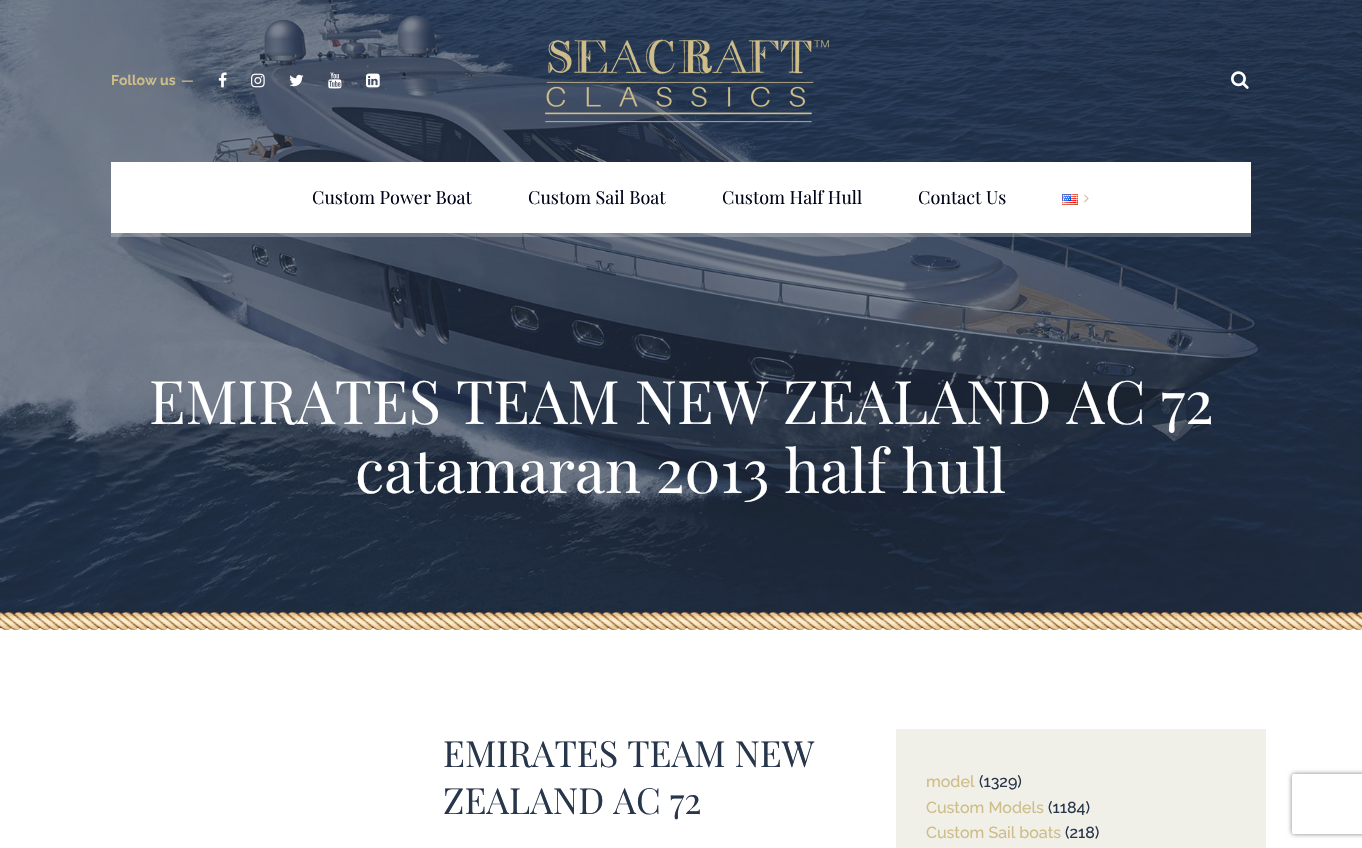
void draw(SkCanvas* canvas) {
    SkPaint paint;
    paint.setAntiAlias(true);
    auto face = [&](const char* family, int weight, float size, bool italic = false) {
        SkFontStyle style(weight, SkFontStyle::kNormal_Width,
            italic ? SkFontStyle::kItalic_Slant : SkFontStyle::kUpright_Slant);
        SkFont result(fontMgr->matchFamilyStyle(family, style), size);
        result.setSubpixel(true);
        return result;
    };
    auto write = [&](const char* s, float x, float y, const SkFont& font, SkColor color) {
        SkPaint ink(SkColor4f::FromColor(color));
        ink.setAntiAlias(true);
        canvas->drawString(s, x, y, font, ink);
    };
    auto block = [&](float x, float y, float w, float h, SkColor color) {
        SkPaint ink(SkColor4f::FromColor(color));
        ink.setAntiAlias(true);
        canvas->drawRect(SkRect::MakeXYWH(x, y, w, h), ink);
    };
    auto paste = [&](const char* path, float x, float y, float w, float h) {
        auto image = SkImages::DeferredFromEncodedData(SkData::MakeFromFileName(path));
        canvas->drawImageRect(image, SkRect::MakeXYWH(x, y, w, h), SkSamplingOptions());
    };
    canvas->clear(SK_ColorWHITE);
    paste("pic1.png", 0, 0, 1362, 628);
    auto kFont1 = face("Raleway", 700, 14);
    write("Follow us", 111, 85, kFont1, SkColorSetRGB(206, 189, 136));
    auto kFont2 = face("Raleway", 500, 14);
    write("—", 181, 85, kFont2, SkColorSetRGB(206, 189, 136));
    paste("pic2.png", 218, 72, 9, 16);
    paste("pic3.png", 251, 73, 14, 15);
    paste("pic4.png", 289, 74, 15, 13);
    paste("pic5.png", 328, 72, 14, 17);
    paste("pic6.png", 366, 73, 14, 15);
    paste("pic7.png", 545, 39, 284, 84);
    paste("pic8.png", 1231, 71, 18, 18);
    block(111, 162, 1140, 71, SK_ColorWHITE);
    auto kFont3 = face("Playfair Display", 400, 18);
    write("Custom Power Boat", 312, 204, kFont3, SkColorSetRGB(0, 4, 25));
    write("Custom Sail Boat", 528, 204, kFont3, SkColorSetRGB(0, 4, 25));
    write("Custom Half Hull", 722, 204, kFont3, SkColorSetRGB(0, 4, 25));
    write("Contact Us", 918, 204, kFont3, SkColorSetRGB(0, 4, 25));
    paste("pic9.png", 1062, 194, 16, 11);
    paste("pic10.png", 1084, 194, 5, 9);
    block(111, 233, 1140, 4, SkColorSetARGB(64, 255, 255, 255));
    block(0, 628, 1362, 1, SkColorSetRGB(238, 238, 238));
    auto kFont4 = face("Playfair Display", 400, 60);
    write("EMIRATES TEAM NEW ZEALAND AC 72", 149, 424, kFont4, SK_ColorWHITE);
    write("catamaran 2013 half hull", 355, 493, kFont4, SK_ColorWHITE);
    paste("pic11.png", 0, 612, 1362, 18);
    auto kFont5 = face("Playfair Display", 400, 36);
    write("EMIRATES TEAM NEW", 443, 767, kFont5, SkColorSetRGB(40, 54, 75));
    write("ZEALAND AC 72", 443, 814, kFont5, SkColorSetRGB(40, 54, 75));
    block(896, 729, 370, 119, SkColorSetRGB(241, 240, 232));
    auto kFont6 = face("Raleway", 500, 16);
    write("model", 926, 787, kFont6, SkColorSetRGB(206, 189, 136));
    write("(1329)", 979, 787, kFont6, SkColorSetRGB(40, 54, 75));
    write("Custom Models", 926, 813, kFont6, SkColorSetRGB(206, 189, 136));
    write("(1184)", 1048, 813, kFont6, SkColorSetRGB(40, 54, 75));
    write("Custom Sail boats", 926, 838, kFont6, SkColorSetRGB(206, 189, 136));
    write("(218)", 1065, 838, kFont6, SkColorSetRGB(40, 54, 75));
    canvas->save();
    canvas->clipPath(SkPathBuilder(SkPathFillType::kEvenOdd).moveTo(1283, 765).lineTo(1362, 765).lineTo(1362, 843).lineTo(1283, 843).close().moveTo(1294, 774).lineTo(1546, 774).cubicTo(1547, 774, 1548, 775, 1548, 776).lineTo(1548, 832).cubicTo(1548, 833, 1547, 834, 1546, 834).lineTo(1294, 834).cubicTo(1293, 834, 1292, 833, 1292, 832).lineTo(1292, 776).cubicTo(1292, 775, 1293, 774, 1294, 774).close().detach(), true);
    paint.setColor(SkColorSetRGB(128, 128, 128));
    paint.setMaskFilter(SkMaskFilter::MakeBlur(kNormal_SkBlurStyle, 2.5f));
    canvas->drawRoundRect(SkRect::MakeXYWH(1292, 774, 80, 60), 2, 2, paint);
    paint.setMaskFilter(nullptr);
    canvas->restore();
}
